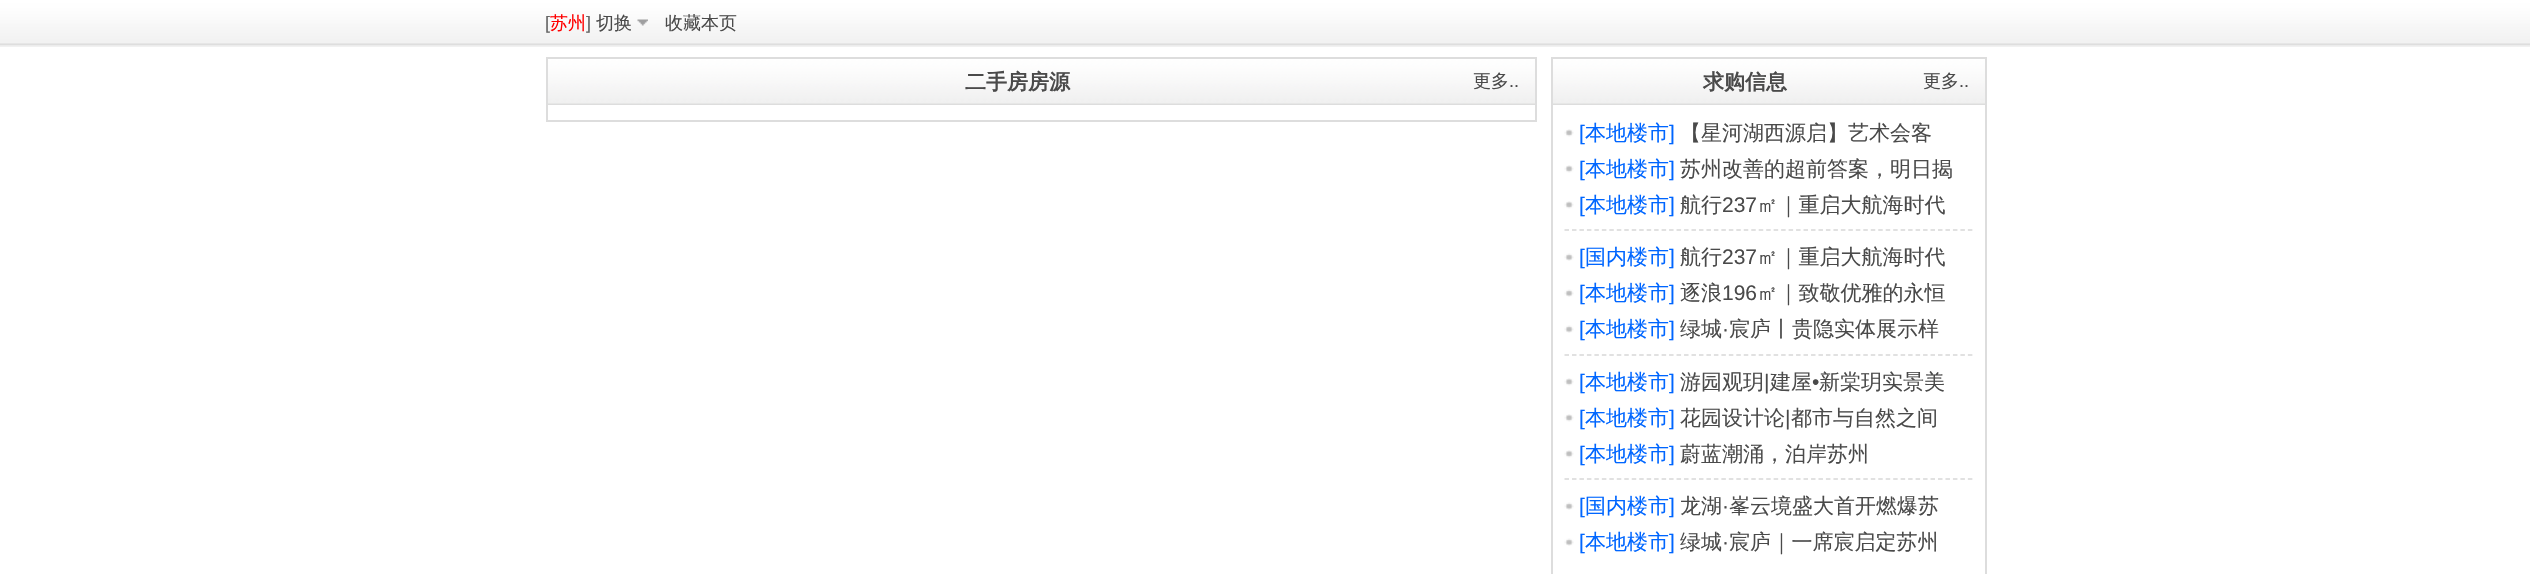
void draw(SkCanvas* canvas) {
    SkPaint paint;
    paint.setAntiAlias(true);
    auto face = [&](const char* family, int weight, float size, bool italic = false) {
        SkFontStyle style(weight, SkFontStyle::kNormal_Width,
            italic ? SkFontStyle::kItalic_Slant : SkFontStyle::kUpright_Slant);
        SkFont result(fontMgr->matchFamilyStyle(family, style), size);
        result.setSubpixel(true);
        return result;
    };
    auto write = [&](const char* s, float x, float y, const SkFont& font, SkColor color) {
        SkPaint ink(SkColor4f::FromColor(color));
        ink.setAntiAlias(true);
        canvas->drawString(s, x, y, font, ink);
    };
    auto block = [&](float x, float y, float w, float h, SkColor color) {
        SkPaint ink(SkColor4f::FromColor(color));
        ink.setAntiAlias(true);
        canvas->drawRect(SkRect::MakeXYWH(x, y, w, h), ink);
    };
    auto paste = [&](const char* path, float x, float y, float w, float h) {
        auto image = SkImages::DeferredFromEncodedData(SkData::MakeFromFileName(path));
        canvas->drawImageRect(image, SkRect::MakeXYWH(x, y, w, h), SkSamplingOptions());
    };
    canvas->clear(SK_ColorWHITE);
    block(0, 46, 2530, 1, SkColorSetRGB(241, 241, 241));
    paste("pic1.png", 0, 0, 2530, 46);
    paste("pic2.png", 637, 19, 11, 7);
    auto kFont1 = face("Liberation Sans", 400, 18);
    write("[", 545, 29, kFont1, SkColorSetRGB(102, 102, 102));
    auto kFont2 = face("WenQuanYi Zen Hei", 500, 18);
    write("苏州", 550, 29, kFont2, SkColorSetRGB(255, 0, 0));
    write("]", 586, 29, kFont1, SkColorSetRGB(102, 102, 102));
    write("切换", 596, 29, kFont2, SkColorSetRGB(74, 74, 74));
    write("收藏本页", 665, 29, kFont2, SkColorSetRGB(74, 74, 74));
    paste("pic3.png", 548, 59, 987, 46);
    block(546, 57, 990, 2, SkColorSetRGB(221, 221, 221));
    block(1535, 57, 2, 48, SkColorSetRGB(221, 221, 221));
    block(546, 57, 2, 48, SkColorSetRGB(221, 221, 221));
    auto kFont3 = face("WenQuanYi Zen Hei", 700, 21);
    write("二手房房源", 965, 89, kFont3, SkColorSetRGB(74, 74, 74));
    write("更多", 1473, 87, kFont2, SkColorSetRGB(74, 74, 74));
    write("..", 1509, 87, kFont1, SkColorSetRGB(74, 74, 74));
    block(1535, 105, 2, 17, SkColorSetRGB(221, 221, 221));
    block(546, 120, 990, 2, SkColorSetRGB(221, 221, 221));
    block(546, 105, 2, 17, SkColorSetRGB(221, 221, 221));
    paste("pic4.png", 1553, 59, 432, 46);
    block(1551, 57, 435, 2, SkColorSetRGB(221, 221, 221));
    block(1985, 57, 2, 48, SkColorSetRGB(221, 221, 221));
    block(1551, 57, 2, 48, SkColorSetRGB(221, 221, 221));
    write("求购信息", 1703, 89, kFont3, SkColorSetRGB(74, 74, 74));
    write("更多", 1923, 87, kFont2, SkColorSetRGB(74, 74, 74));
    write("..", 1959, 87, kFont1, SkColorSetRGB(74, 74, 74));
    block(1985, 105, 2, 469, SkColorSetRGB(221, 221, 221));
    block(1551, 105, 2, 469, SkColorSetRGB(221, 221, 221));
    paste("pic5.png", 1564, 129, 10, 8);
    auto kFont4 = face("Liberation Sans", 400, 21);
    write("[", 1579, 140, kFont4, SkColorSetRGB(0, 102, 255));
    auto kFont5 = face("WenQuanYi Zen Hei", 500, 21);
    write("本地楼市", 1585, 140, kFont5, SkColorSetRGB(0, 102, 255));
    write("]", 1669, 140, kFont4, SkColorSetRGB(0, 102, 255));
    write("【星河湖西源启】艺术会客", 1680, 140, kFont5, SkColorSetRGB(74, 74, 74));
    paste("pic5.png", 1564, 165, 10, 8);
    write("[", 1579, 176, kFont4, SkColorSetRGB(0, 102, 255));
    write("本地楼市", 1585, 176, kFont5, SkColorSetRGB(0, 102, 255));
    write("]", 1669, 176, kFont4, SkColorSetRGB(0, 102, 255));
    write("苏州改善的超前答案，明日揭", 1680, 176, kFont5, SkColorSetRGB(74, 74, 74));
    paste("pic5.png", 1564, 201, 10, 8);
    write("[", 1579, 212, kFont4, SkColorSetRGB(0, 102, 255));
    write("本地楼市", 1585, 212, kFont5, SkColorSetRGB(0, 102, 255));
    write("]", 1669, 212, kFont4, SkColorSetRGB(0, 102, 255));
    write("航行", 1680, 212, kFont5, SkColorSetRGB(74, 74, 74));
    write("237", 1722, 212, kFont4, SkColorSetRGB(74, 74, 74));
    write("㎡｜重启大航海时代", 1757, 212, kFont5, SkColorSetRGB(74, 74, 74));
    paint.setStyle(SkPaint::kStroke_Style);
    paint.setStrokeWidth(1.5f);
    paint.setColor(SkColorSetRGB(216, 216, 216));
    paint.setPathEffect(SkDashPathEffect::Make({{4.5f, 2.97f}}, 0));
    canvas->drawPath(SkPathBuilder().moveTo(1564.5f, 230).lineTo(1972.5f, 230).detach(), paint);
    paint.setPathEffect(nullptr);
    paste("pic6.png", 1564, 253, 10, 8);
    write("[", 1579, 264, kFont4, SkColorSetRGB(0, 102, 255));
    write("国内楼市", 1585, 264, kFont5, SkColorSetRGB(0, 102, 255));
    write("]", 1669, 264, kFont4, SkColorSetRGB(0, 102, 255));
    write("航行", 1680, 264, kFont5, SkColorSetRGB(74, 74, 74));
    write("237", 1722, 264, kFont4, SkColorSetRGB(74, 74, 74));
    write("㎡｜重启大航海时代", 1757, 264, kFont5, SkColorSetRGB(74, 74, 74));
    paste("pic6.png", 1564, 289, 10, 8);
    write("[", 1579, 300, kFont4, SkColorSetRGB(0, 102, 255));
    write("本地楼市", 1585, 300, kFont5, SkColorSetRGB(0, 102, 255));
    write("]", 1669, 300, kFont4, SkColorSetRGB(0, 102, 255));
    write("逐浪", 1680, 300, kFont5, SkColorSetRGB(74, 74, 74));
    write("196", 1722, 300, kFont4, SkColorSetRGB(74, 74, 74));
    write("㎡｜致敬优雅的永恒", 1757, 300, kFont5, SkColorSetRGB(74, 74, 74));
    paste("pic6.png", 1564, 325, 10, 8);
    write("[", 1579, 336, kFont4, SkColorSetRGB(0, 102, 255));
    write("本地楼市", 1585, 336, kFont5, SkColorSetRGB(0, 102, 255));
    write("]", 1669, 336, kFont4, SkColorSetRGB(0, 102, 255));
    write("绿城", 1680, 336, kFont5, SkColorSetRGB(74, 74, 74));
    write("·", 1722, 336, kFont4, SkColorSetRGB(74, 74, 74));
    write("宸庐丨贵隐实体展示样", 1729, 336, kFont5, SkColorSetRGB(74, 74, 74));
    paint.setPathEffect(SkDashPathEffect::Make({{4.5f, 2.97f}}, 0));
    canvas->drawPath(SkPathBuilder().moveTo(1564.5f, 355).lineTo(1972.5f, 355).detach(), paint);
    paint.setPathEffect(nullptr);
    paste("pic5.png", 1564, 378, 10, 8);
    write("[", 1579, 389, kFont4, SkColorSetRGB(0, 102, 255));
    write("本地楼市", 1585, 389, kFont5, SkColorSetRGB(0, 102, 255));
    write("]", 1669, 389, kFont4, SkColorSetRGB(0, 102, 255));
    write("游园观玥", 1680, 389, kFont5, SkColorSetRGB(74, 74, 74));
    write("|", 1764, 389, kFont4, SkColorSetRGB(74, 74, 74));
    write("建屋", 1770, 389, kFont5, SkColorSetRGB(74, 74, 74));
    write("•", 1812, 389, kFont4, SkColorSetRGB(74, 74, 74));
    write("新棠玥实景美", 1819, 389, kFont5, SkColorSetRGB(74, 74, 74));
    paste("pic5.png", 1564, 414, 10, 8);
    write("[", 1579, 425, kFont4, SkColorSetRGB(0, 102, 255));
    write("本地楼市", 1585, 425, kFont5, SkColorSetRGB(0, 102, 255));
    write("]", 1669, 425, kFont4, SkColorSetRGB(0, 102, 255));
    write("花园设计论", 1680, 425, kFont5, SkColorSetRGB(74, 74, 74));
    write("|", 1785, 425, kFont4, SkColorSetRGB(74, 74, 74));
    write("都市与自然之间", 1791, 425, kFont5, SkColorSetRGB(74, 74, 74));
    paste("pic5.png", 1564, 450, 10, 8);
    write("[", 1579, 461, kFont4, SkColorSetRGB(0, 102, 255));
    write("本地楼市", 1585, 461, kFont5, SkColorSetRGB(0, 102, 255));
    write("]", 1669, 461, kFont4, SkColorSetRGB(0, 102, 255));
    write("蔚蓝潮涌，泊岸苏州", 1680, 461, kFont5, SkColorSetRGB(74, 74, 74));
    paint.setPathEffect(SkDashPathEffect::Make({{4.5f, 2.97f}}, 0));
    canvas->drawPath(SkPathBuilder().moveTo(1564.5f, 479).lineTo(1972.5f, 479).detach(), paint);
    paint.setPathEffect(nullptr);
    paste("pic6.png", 1564, 502, 10, 8);
    write("[", 1579, 513, kFont4, SkColorSetRGB(0, 102, 255));
    write("国内楼市", 1585, 513, kFont5, SkColorSetRGB(0, 102, 255));
    write("]", 1669, 513, kFont4, SkColorSetRGB(0, 102, 255));
    write("龙湖", 1680, 513, kFont5, SkColorSetRGB(74, 74, 74));
    write("·", 1722, 513, kFont4, SkColorSetRGB(74, 74, 74));
    write("峯云境盛大首开燃爆苏", 1729, 513, kFont5, SkColorSetRGB(74, 74, 74));
    paste("pic6.png", 1564, 538, 10, 8);
    write("[", 1579, 549, kFont4, SkColorSetRGB(0, 102, 255));
    write("本地楼市", 1585, 549, kFont5, SkColorSetRGB(0, 102, 255));
    write("]", 1669, 549, kFont4, SkColorSetRGB(0, 102, 255));
    write("绿城", 1680, 549, kFont5, SkColorSetRGB(74, 74, 74));
    write("·", 1722, 549, kFont4, SkColorSetRGB(74, 74, 74));
    write("宸庐｜一席宸启定苏州", 1729, 549, kFont5, SkColorSetRGB(74, 74, 74));
}
